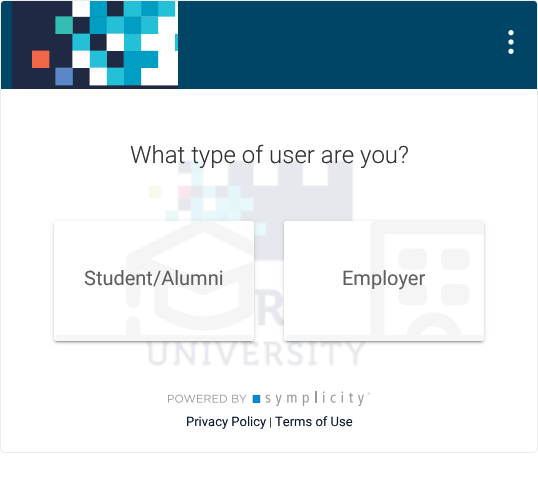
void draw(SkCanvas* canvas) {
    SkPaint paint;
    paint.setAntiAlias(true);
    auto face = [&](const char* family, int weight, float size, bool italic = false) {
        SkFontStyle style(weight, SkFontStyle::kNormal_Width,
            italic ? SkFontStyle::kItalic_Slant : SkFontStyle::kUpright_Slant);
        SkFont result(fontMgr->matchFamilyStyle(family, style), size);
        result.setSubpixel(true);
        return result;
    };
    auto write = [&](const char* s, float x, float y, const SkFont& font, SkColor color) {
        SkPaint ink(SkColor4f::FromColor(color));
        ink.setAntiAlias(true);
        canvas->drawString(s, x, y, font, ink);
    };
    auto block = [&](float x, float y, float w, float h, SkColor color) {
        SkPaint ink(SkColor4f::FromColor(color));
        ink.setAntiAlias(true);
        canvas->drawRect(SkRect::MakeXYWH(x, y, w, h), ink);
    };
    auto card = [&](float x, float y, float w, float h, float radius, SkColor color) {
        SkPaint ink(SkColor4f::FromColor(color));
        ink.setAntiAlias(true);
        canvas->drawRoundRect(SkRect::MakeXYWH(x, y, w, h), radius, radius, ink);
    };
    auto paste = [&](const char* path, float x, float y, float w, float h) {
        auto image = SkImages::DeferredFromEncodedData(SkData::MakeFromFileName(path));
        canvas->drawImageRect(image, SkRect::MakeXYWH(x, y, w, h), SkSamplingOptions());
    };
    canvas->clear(SK_ColorWHITE);
    paste("pic1.png", 0, 0, 538, 497);
    paint.setStyle(SkPaint::kStroke_Style);
    paint.setStrokeWidth(1);
    paint.setColor(SkColorSetRGB(236, 236, 236));
    canvas->drawRoundRect(SkRect::MakeXYWH(0.5f, 0.5f, 537, 452), 4.5f, 4.5f, paint);
    paint.setStyle(SkPaint::kFill_Style);
    paint.setColor(SkColorSetRGB(0, 68, 102));
    canvas->drawPath(SkPathBuilder().moveTo(4, 1).lineTo(534, 1).cubicTo(535.5f, 1, 537, 2.5f, 537, 4).lineTo(537, 89).lineTo(1, 89).lineTo(1, 4).cubicTo(1, 2.5f, 2.5f, 1, 4, 1).close().detach(), paint);
    paste("pic2.png", 12, 1, 166, 88);
    paste("pic3.png", 508, 30, 6, 24);
    auto kFont1 = face("Roboto", 300, 24);
    write("What type of user are you?", 130, 163, kFont1, SkColorSetRGB(51, 51, 51));
    paint.setColor(SkColorSetARGB(31, 0, 0, 0));
    paint.setMaskFilter(SkMaskFilter::MakeBlur(kNormal_SkBlurStyle, 2.5f));
    canvas->drawRoundRect(SkRect::MakeXYWH(54, 222, 200, 120), 3, 3, paint);
    paint.setMaskFilter(nullptr);
    paint.setColor(SkColorSetARGB(51, 0, 0, 0));
    paint.setMaskFilter(SkMaskFilter::MakeBlur(kNormal_SkBlurStyle, 0.5f));
    canvas->drawRoundRect(SkRect::MakeXYWH(56, 226, 196, 116), 1, 1, paint);
    paint.setMaskFilter(nullptr);
    paint.setColor(SkColorSetARGB(36, 0, 0, 0));
    paint.setMaskFilter(SkMaskFilter::MakeBlur(kNormal_SkBlurStyle, 1));
    canvas->drawRoundRect(SkRect::MakeXYWH(54, 223, 200, 120), 3, 3, paint);
    paint.setMaskFilter(nullptr);
    card(54, 221, 200, 120, 3, SK_ColorWHITE);
    paste("pic4.png", 126, 221, 128, 114);
    block(56, 335, 197, 6, SkColorSetRGB(246, 246, 246));
    auto kFont2 = face("Roboto", 400, 20);
    write("Student/Alumni", 84, 285, kFont2, SkColorSetRGB(96, 96, 96));
    paint.setColor(SkColorSetARGB(31, 0, 0, 0));
    paint.setMaskFilter(SkMaskFilter::MakeBlur(kNormal_SkBlurStyle, 2.5f));
    canvas->drawRoundRect(SkRect::MakeXYWH(284, 222, 200, 120), 3, 3, paint);
    paint.setMaskFilter(nullptr);
    paint.setColor(SkColorSetARGB(51, 0, 0, 0));
    paint.setMaskFilter(SkMaskFilter::MakeBlur(kNormal_SkBlurStyle, 0.5f));
    canvas->drawRoundRect(SkRect::MakeXYWH(286, 226, 196, 116), 1, 1, paint);
    paint.setMaskFilter(nullptr);
    paint.setColor(SkColorSetARGB(36, 0, 0, 0));
    paint.setMaskFilter(SkMaskFilter::MakeBlur(kNormal_SkBlurStyle, 1));
    canvas->drawRoundRect(SkRect::MakeXYWH(284, 223, 200, 120), 3, 3, paint);
    paint.setMaskFilter(nullptr);
    card(284, 221, 200, 120, 3, SK_ColorWHITE);
    paste("pic5.png", 370, 221, 114, 119);
    block(286, 335, 197, 6, SkColorSetRGB(246, 246, 246));
    write("Employer", 342, 285, kFont2, SkColorSetRGB(96, 96, 96));
    paste("pic6.png", 168, 391, 202, 15);
    auto kFont3 = face("Roboto", 400, 13);
    write("Privacy Policy", 186, 426, kFont3, SkColorSetRGB(13, 26, 51));
    auto kFont4 = face("Roboto", 400, 12);
    write("|", 269, 426, kFont4, SkColorSetRGB(51, 51, 51));
    write("Terms of Use", 275, 426, kFont3, SkColorSetRGB(13, 26, 51));
}
